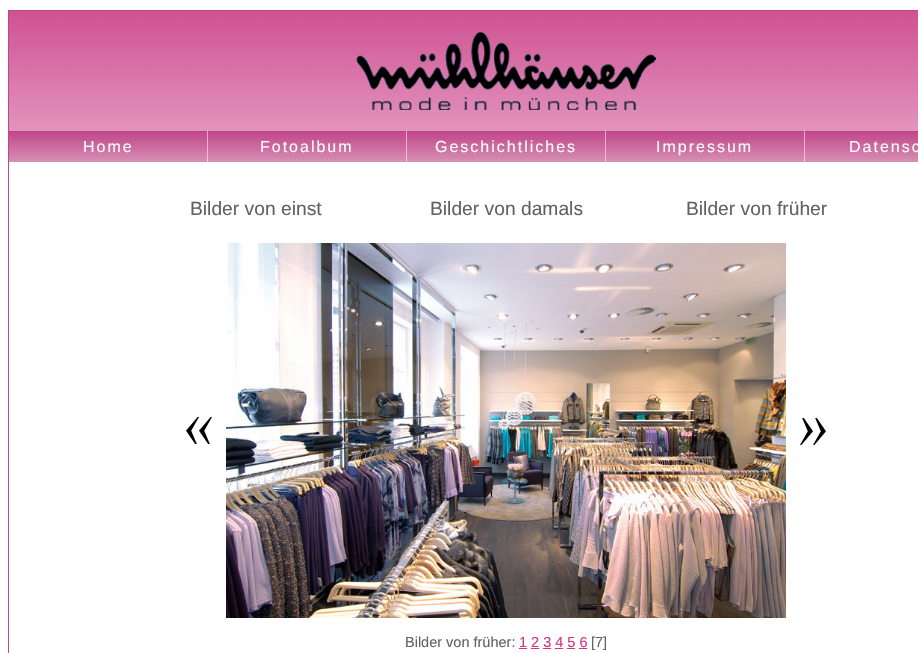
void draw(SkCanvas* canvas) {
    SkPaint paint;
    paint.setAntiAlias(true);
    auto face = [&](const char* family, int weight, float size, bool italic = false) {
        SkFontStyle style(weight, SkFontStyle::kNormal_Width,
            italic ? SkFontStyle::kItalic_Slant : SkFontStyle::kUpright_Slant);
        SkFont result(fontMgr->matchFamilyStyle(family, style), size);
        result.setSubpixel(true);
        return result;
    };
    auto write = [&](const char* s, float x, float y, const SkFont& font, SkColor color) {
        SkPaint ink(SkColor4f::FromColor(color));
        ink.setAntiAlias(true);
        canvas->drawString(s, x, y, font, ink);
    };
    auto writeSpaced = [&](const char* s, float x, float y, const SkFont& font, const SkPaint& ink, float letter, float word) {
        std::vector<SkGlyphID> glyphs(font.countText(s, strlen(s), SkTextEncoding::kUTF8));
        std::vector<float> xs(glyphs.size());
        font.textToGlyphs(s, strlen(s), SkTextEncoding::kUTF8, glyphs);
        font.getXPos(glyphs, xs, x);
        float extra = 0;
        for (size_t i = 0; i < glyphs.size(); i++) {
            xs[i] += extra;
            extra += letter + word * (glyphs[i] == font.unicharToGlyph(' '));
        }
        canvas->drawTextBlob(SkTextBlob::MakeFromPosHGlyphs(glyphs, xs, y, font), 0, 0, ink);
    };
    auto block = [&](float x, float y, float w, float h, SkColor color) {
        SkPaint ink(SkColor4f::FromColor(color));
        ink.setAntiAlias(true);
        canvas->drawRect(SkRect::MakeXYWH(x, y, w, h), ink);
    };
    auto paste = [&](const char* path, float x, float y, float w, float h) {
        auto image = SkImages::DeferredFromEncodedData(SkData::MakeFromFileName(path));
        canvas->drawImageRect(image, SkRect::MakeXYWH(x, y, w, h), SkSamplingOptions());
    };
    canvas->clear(SK_ColorWHITE);
    paint.setStyle(SkPaint::kStroke_Style);
    paint.setStrokeWidth(1);
    paint.setColor(SkColorSetRGB(196, 68, 136));
    canvas->drawRect(SkRect::MakeXYWH(8.5f, 10.5f, 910, 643), paint);
    paste("pic1.png", 9, 11, 909, 120);
    paste("pic2.png", 356, 32, 300, 78);
    paste("pic3.png", 9, 131, 198, 31);
    auto kFont1 = face("Liberation Sans", 400, 16);
    paint.setStyle(SkPaint::kFill_Style);
    paint.setColor(SkColorSetRGB(250, 250, 250));
    writeSpaced("Home", 83, 152, kFont1, paint, 2, 0);
    paste("pic4.png", 207, 131, 1, 31);
    paste("pic3.png", 208, 131, 198, 31);
    writeSpaced("Fotoalbum", 260, 152, kFont1, paint, 2, 0);
    paste("pic4.png", 406, 131, 1, 31);
    paste("pic3.png", 407, 131, 198, 31);
    writeSpaced("Geschichtliches", 435, 152, kFont1, paint, 2, 0);
    paste("pic4.png", 605, 131, 1, 31);
    paste("pic3.png", 606, 131, 198, 31);
    writeSpaced("Impressum", 656, 152, kFont1, paint, 2, 0);
    paste("pic4.png", 804, 131, 1, 31);
    paste("pic5.png", 805, 131, 113, 31);
    writeSpaced("Datensc", 849, 152, kFont1, paint, 2, 0);
    auto kFont2 = face("Liberation Sans", 400, 19.25f);
    write("Bilder von einst", 190, 215, kFont2, SkColorSetRGB(97, 97, 97));
    write("Bilder von damals", 430, 215, kFont2, SkColorSetRGB(97, 97, 97));
    write("Bilder von früher", 686, 215, kFont2, SkColorSetRGB(97, 97, 97));
    paste("pic6.png", 186, 417, 26, 27);
    paste("pic7.png", 226, 243, 560, 375);
    paste("pic8.png", 800, 418, 26, 27);
    auto kFont3 = face("Liberation Sans", 400, 14.5f);
    write("Bilder von früher:", 405, 647, kFont3, SkColorSetRGB(97, 97, 97));
    write("1 2 3 4 5 6", 519, 647, kFont3, SkColorSetRGB(205, 51, 135));
    block(519, 648, 8, 1, SkColorSetRGB(205, 51, 135));
    write("[7]", 591, 647, kFont3, SkColorSetRGB(97, 97, 97));
    block(531, 648, 8, 1, SkColorSetRGB(205, 51, 135));
    block(543, 648, 8, 1, SkColorSetRGB(205, 51, 135));
    block(555, 648, 8, 1, SkColorSetRGB(205, 51, 135));
    block(567, 648, 8, 1, SkColorSetRGB(205, 51, 135));
    block(579, 648, 8, 1, SkColorSetRGB(205, 51, 135));
}
